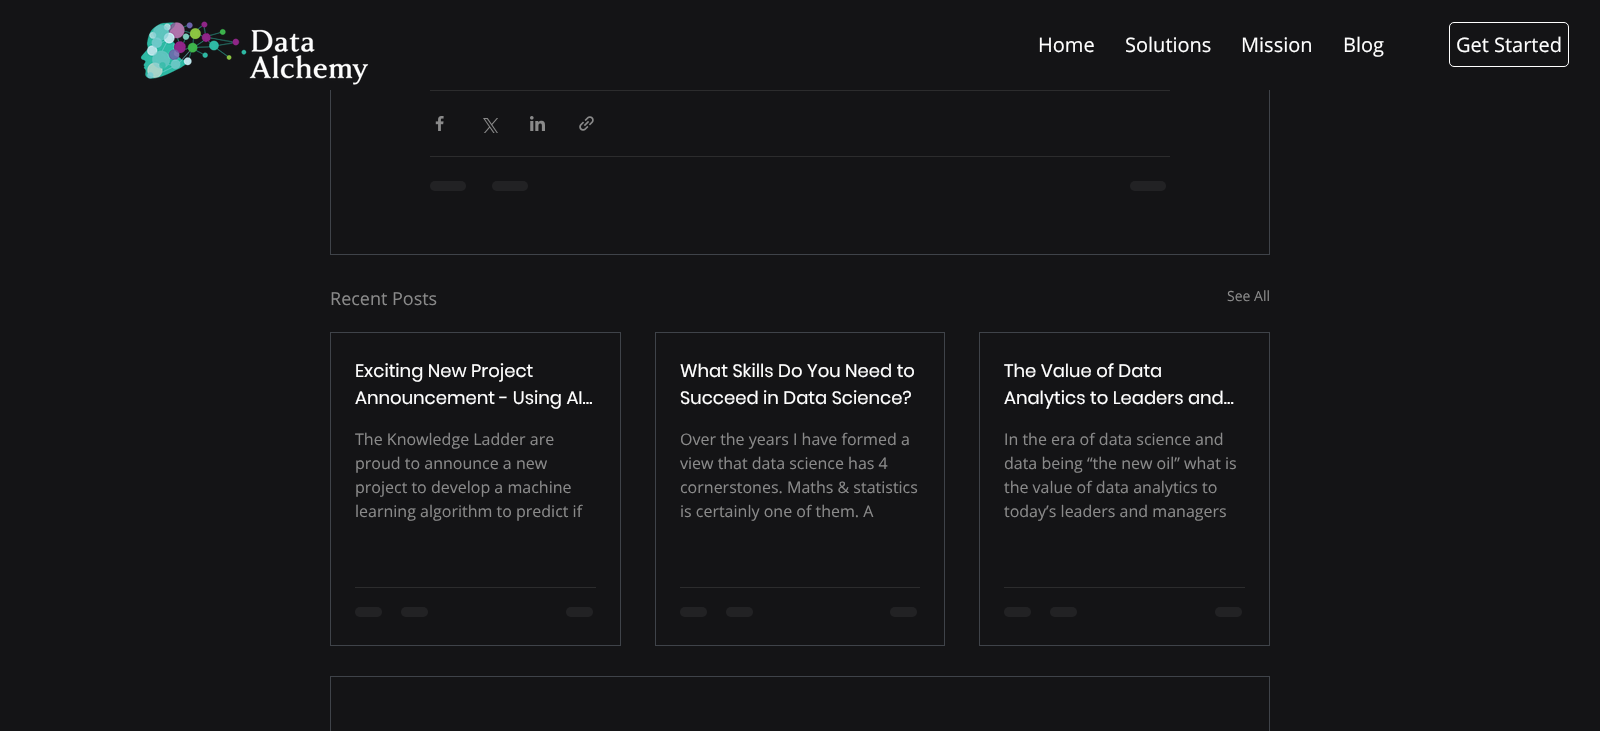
void draw(SkCanvas* canvas) {
    SkPaint paint;
    paint.setAntiAlias(true);
    auto face = [&](const char* family, int weight, float size, bool italic = false) {
        SkFontStyle style(weight, SkFontStyle::kNormal_Width,
            italic ? SkFontStyle::kItalic_Slant : SkFontStyle::kUpright_Slant);
        SkFont result(fontMgr->matchFamilyStyle(family, style), size);
        result.setSubpixel(true);
        return result;
    };
    auto write = [&](const char* s, float x, float y, const SkFont& font, SkColor color) {
        SkPaint ink(SkColor4f::FromColor(color));
        ink.setAntiAlias(true);
        canvas->drawString(s, x, y, font, ink);
    };
    auto block = [&](float x, float y, float w, float h, SkColor color) {
        SkPaint ink(SkColor4f::FromColor(color));
        ink.setAntiAlias(true);
        canvas->drawRect(SkRect::MakeXYWH(x, y, w, h), ink);
    };
    auto card = [&](float x, float y, float w, float h, float radius, SkColor color) {
        SkPaint ink(SkColor4f::FromColor(color));
        ink.setAntiAlias(true);
        canvas->drawRoundRect(SkRect::MakeXYWH(x, y, w, h), radius, radius, ink);
    };
    auto paste = [&](const char* path, float x, float y, float w, float h) {
        auto image = SkImages::DeferredFromEncodedData(SkData::MakeFromFileName(path));
        canvas->drawImageRect(image, SkRect::MakeXYWH(x, y, w, h), SkSamplingOptions());
    };
    canvas->clear(SkColorSetRGB(20, 20, 22));
    paint.setStyle(SkPaint::kStroke_Style);
    paint.setStrokeWidth(1);
    paint.setColor(SkColorSetRGB(63, 67, 73));
    canvas->drawRect(SkRect::MakeXYWH(330.5f, -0.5f, 939, 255), paint);
    block(330, 0, 940, 90, SkColorSetRGB(20, 20, 22));
    paste("pic1.png", 140, 21, 229, 64);
    auto kFont1 = face("Open Sans", 400, 20);
    write("Home", 1038, 52, kFont1, SK_ColorWHITE);
    write("Solutions", 1125, 52, kFont1, SK_ColorWHITE);
    write("Mission", 1241, 52, kFont1, SK_ColorWHITE);
    write("Blog", 1343, 52, kFont1, SK_ColorWHITE);
    paint.setColor(SK_ColorWHITE);
    canvas->drawRoundRect(SkRect::MakeXYWH(1449.5f, 22.5f, 119, 44), 4.5f, 4.5f, paint);
    write("Get Started", 1456, 52, kFont1, SK_ColorWHITE);
    block(430, 90, 740, 1, SkColorSetRGB(44, 44, 45));
    paste("pic2.png", 435, 116, 9, 15);
    paste("pic3.png", 483, 118, 15, 15);
    paste("pic4.png", 530, 116, 15, 15);
    paste("pic5.png", 579, 116, 15, 15);
    block(430, 156, 740, 1, SkColorSetRGB(44, 44, 45));
    card(430, 181, 36, 10, 5, SkColorSetRGB(34, 34, 36));
    card(492, 181, 36, 10, 5, SkColorSetRGB(34, 34, 36));
    card(1130, 181, 36, 10, 5, SkColorSetRGB(34, 34, 36));
    auto kFont2 = face("Open Sans", 400, 18);
    write("Recent Posts", 330, 305, kFont2, SkColorSetRGB(138, 138, 138));
    auto kFont3 = face("Open Sans", 400, 14);
    write("See All", 1227, 301, kFont3, SkColorSetRGB(138, 138, 138));
    paint.setColor(SkColorSetRGB(63, 67, 73));
    canvas->drawRect(SkRect::MakeXYWH(330.5f, 332.5f, 290, 313), paint);
    auto kFont4 = face("Poppins", 400, 18);
    write("Exciting New Project", 355, 377, kFont4, SK_ColorWHITE);
    write("Announcement - Using AI…", 355, 404, kFont4, SK_ColorWHITE);
    auto kFont5 = face("Open Sans", 400, 16);
    write("The Knowledge Ladder are", 355, 445, kFont5, SkColorSetRGB(138, 138, 138));
    write("proud to announce a new", 355, 469, kFont5, SkColorSetRGB(138, 138, 138));
    write("project to develop a machine", 355, 493, kFont5, SkColorSetRGB(138, 138, 138));
    write("learning algorithm to predict if", 355, 517, kFont5, SkColorSetRGB(138, 138, 138));
    block(355, 587, 241, 1, SkColorSetRGB(44, 44, 45));
    card(355, 607, 27, 10, 5, SkColorSetRGB(34, 34, 36));
    card(401, 607, 27, 10, 5, SkColorSetRGB(34, 34, 36));
    card(566, 607, 27, 10, 5, SkColorSetRGB(34, 34, 36));
    canvas->drawRect(SkRect::MakeXYWH(655.5f, 332.5f, 289, 313), paint);
    write("What Skills Do You Need to", 680, 377, kFont4, SK_ColorWHITE);
    write("Succeed in Data Science?", 680, 404, kFont4, SK_ColorWHITE);
    write("Over the years I have formed a", 680, 445, kFont5, SkColorSetRGB(138, 138, 138));
    write("view that data science has 4", 680, 469, kFont5, SkColorSetRGB(138, 138, 138));
    write("cornerstones. Maths & statistics", 680, 493, kFont5, SkColorSetRGB(138, 138, 138));
    write("is certainly one of them. A", 680, 517, kFont5, SkColorSetRGB(138, 138, 138));
    block(680, 587, 240, 1, SkColorSetRGB(44, 44, 45));
    card(680, 607, 27, 10, 5, SkColorSetRGB(34, 34, 36));
    card(726, 607, 27, 10, 5, SkColorSetRGB(34, 34, 36));
    card(890, 607, 27, 10, 5, SkColorSetRGB(34, 34, 36));
    canvas->drawRect(SkRect::MakeXYWH(979.5f, 332.5f, 290, 313), paint);
    write("The Value of Data", 1004, 377, kFont4, SK_ColorWHITE);
    write("Analytics to Leaders and…", 1004, 404, kFont4, SK_ColorWHITE);
    write("In the era of data science and", 1004, 445, kFont5, SkColorSetRGB(138, 138, 138));
    write("data being “the new oil” what is", 1004, 469, kFont5, SkColorSetRGB(138, 138, 138));
    write("the value of data analytics to", 1004, 493, kFont5, SkColorSetRGB(138, 138, 138));
    write("today’s leaders and managers", 1004, 517, kFont5, SkColorSetRGB(138, 138, 138));
    block(1004, 587, 241, 1, SkColorSetRGB(44, 44, 45));
    card(1004, 607, 27, 10, 5, SkColorSetRGB(34, 34, 36));
    card(1050, 607, 27, 10, 5, SkColorSetRGB(34, 34, 36));
    card(1215, 607, 27, 10, 5, SkColorSetRGB(34, 34, 36));
    canvas->drawRect(SkRect::MakeXYWH(330.5f, 676.5f, 939, 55), paint);
}
